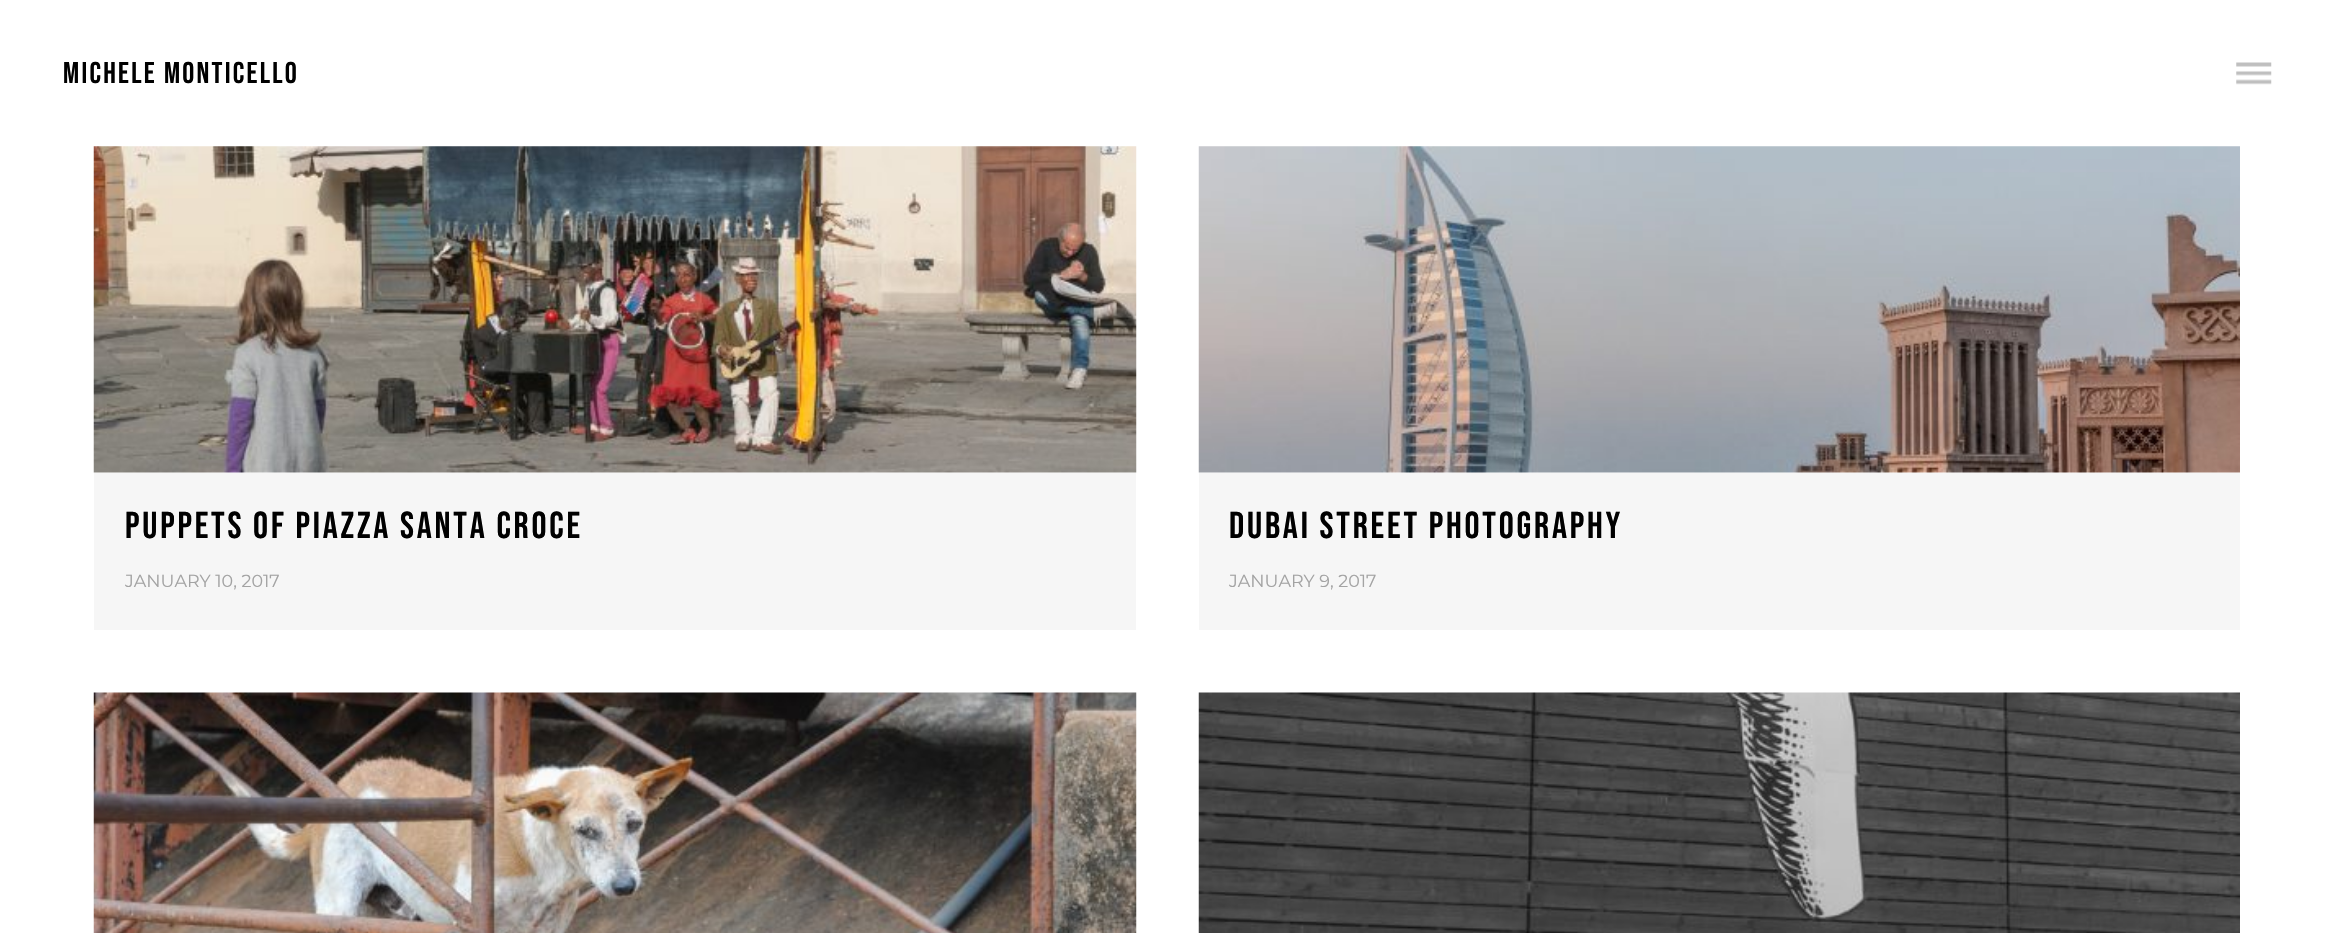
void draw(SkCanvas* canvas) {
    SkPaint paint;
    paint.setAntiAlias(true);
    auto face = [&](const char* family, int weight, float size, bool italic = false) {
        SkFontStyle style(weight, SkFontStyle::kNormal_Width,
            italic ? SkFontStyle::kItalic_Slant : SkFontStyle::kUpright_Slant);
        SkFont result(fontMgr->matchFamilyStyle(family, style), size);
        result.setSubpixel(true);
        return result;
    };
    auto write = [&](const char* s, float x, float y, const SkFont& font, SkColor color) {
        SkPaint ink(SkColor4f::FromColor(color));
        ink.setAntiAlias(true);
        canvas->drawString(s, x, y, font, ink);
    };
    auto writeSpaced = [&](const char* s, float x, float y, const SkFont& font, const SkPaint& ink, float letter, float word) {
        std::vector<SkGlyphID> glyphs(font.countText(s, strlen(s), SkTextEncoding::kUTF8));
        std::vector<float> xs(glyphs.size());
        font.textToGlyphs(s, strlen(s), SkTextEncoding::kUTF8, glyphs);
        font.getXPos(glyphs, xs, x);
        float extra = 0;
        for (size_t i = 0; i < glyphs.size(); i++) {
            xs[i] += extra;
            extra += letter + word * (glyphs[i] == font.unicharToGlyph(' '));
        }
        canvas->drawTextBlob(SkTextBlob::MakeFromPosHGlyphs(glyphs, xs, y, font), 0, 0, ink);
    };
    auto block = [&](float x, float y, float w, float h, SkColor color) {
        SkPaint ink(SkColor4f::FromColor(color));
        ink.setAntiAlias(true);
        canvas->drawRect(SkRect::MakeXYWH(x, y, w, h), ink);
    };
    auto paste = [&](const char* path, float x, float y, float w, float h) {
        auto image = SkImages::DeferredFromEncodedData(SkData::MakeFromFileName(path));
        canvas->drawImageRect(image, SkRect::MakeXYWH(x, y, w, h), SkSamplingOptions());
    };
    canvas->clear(SK_ColorWHITE);
    auto kFont1 = face("Bebas Neue", 400, 30);
    paint.setColor(SK_ColorBLACK);
    writeSpaced("MICHELE MONTICELLO", 63, 83, kFont1, paint, 2.25f, 0);
    paste("pic1.png", 2236, 62, 36, 23);
    paste("pic2.png", 93, 146, 1044, 327);
    block(94, 473, 1042, 157, SkColorSetRGB(246, 246, 246));
    auto kFont2 = face("Bebas Neue", 400, 37.5f);
    writeSpaced("PUPPETS OF PIAZZA SANTA CROCE", 125, 538, kFont2, paint, 2.8f, 0);
    auto kFont3 = face("Montserrat", 100, 17.5f);
    write("JANUARY 10, 2017", 125, 587, kFont3, SkColorSetRGB(163, 163, 163));
    paste("pic3.png", 1198, 146, 1042, 327);
    block(1199, 473, 1041, 157, SkColorSetRGB(246, 246, 246));
    writeSpaced("DUBAI STREET PHOTOGRAPHY", 1229, 538, kFont2, paint, 2.8f, 0);
    write("JANUARY 9, 2017", 1229, 587, kFont3, SkColorSetRGB(163, 163, 163));
    paste("pic4.png", 93, 692, 1044, 241);
    paste("pic5.png", 1198, 692, 1042, 241);
}
